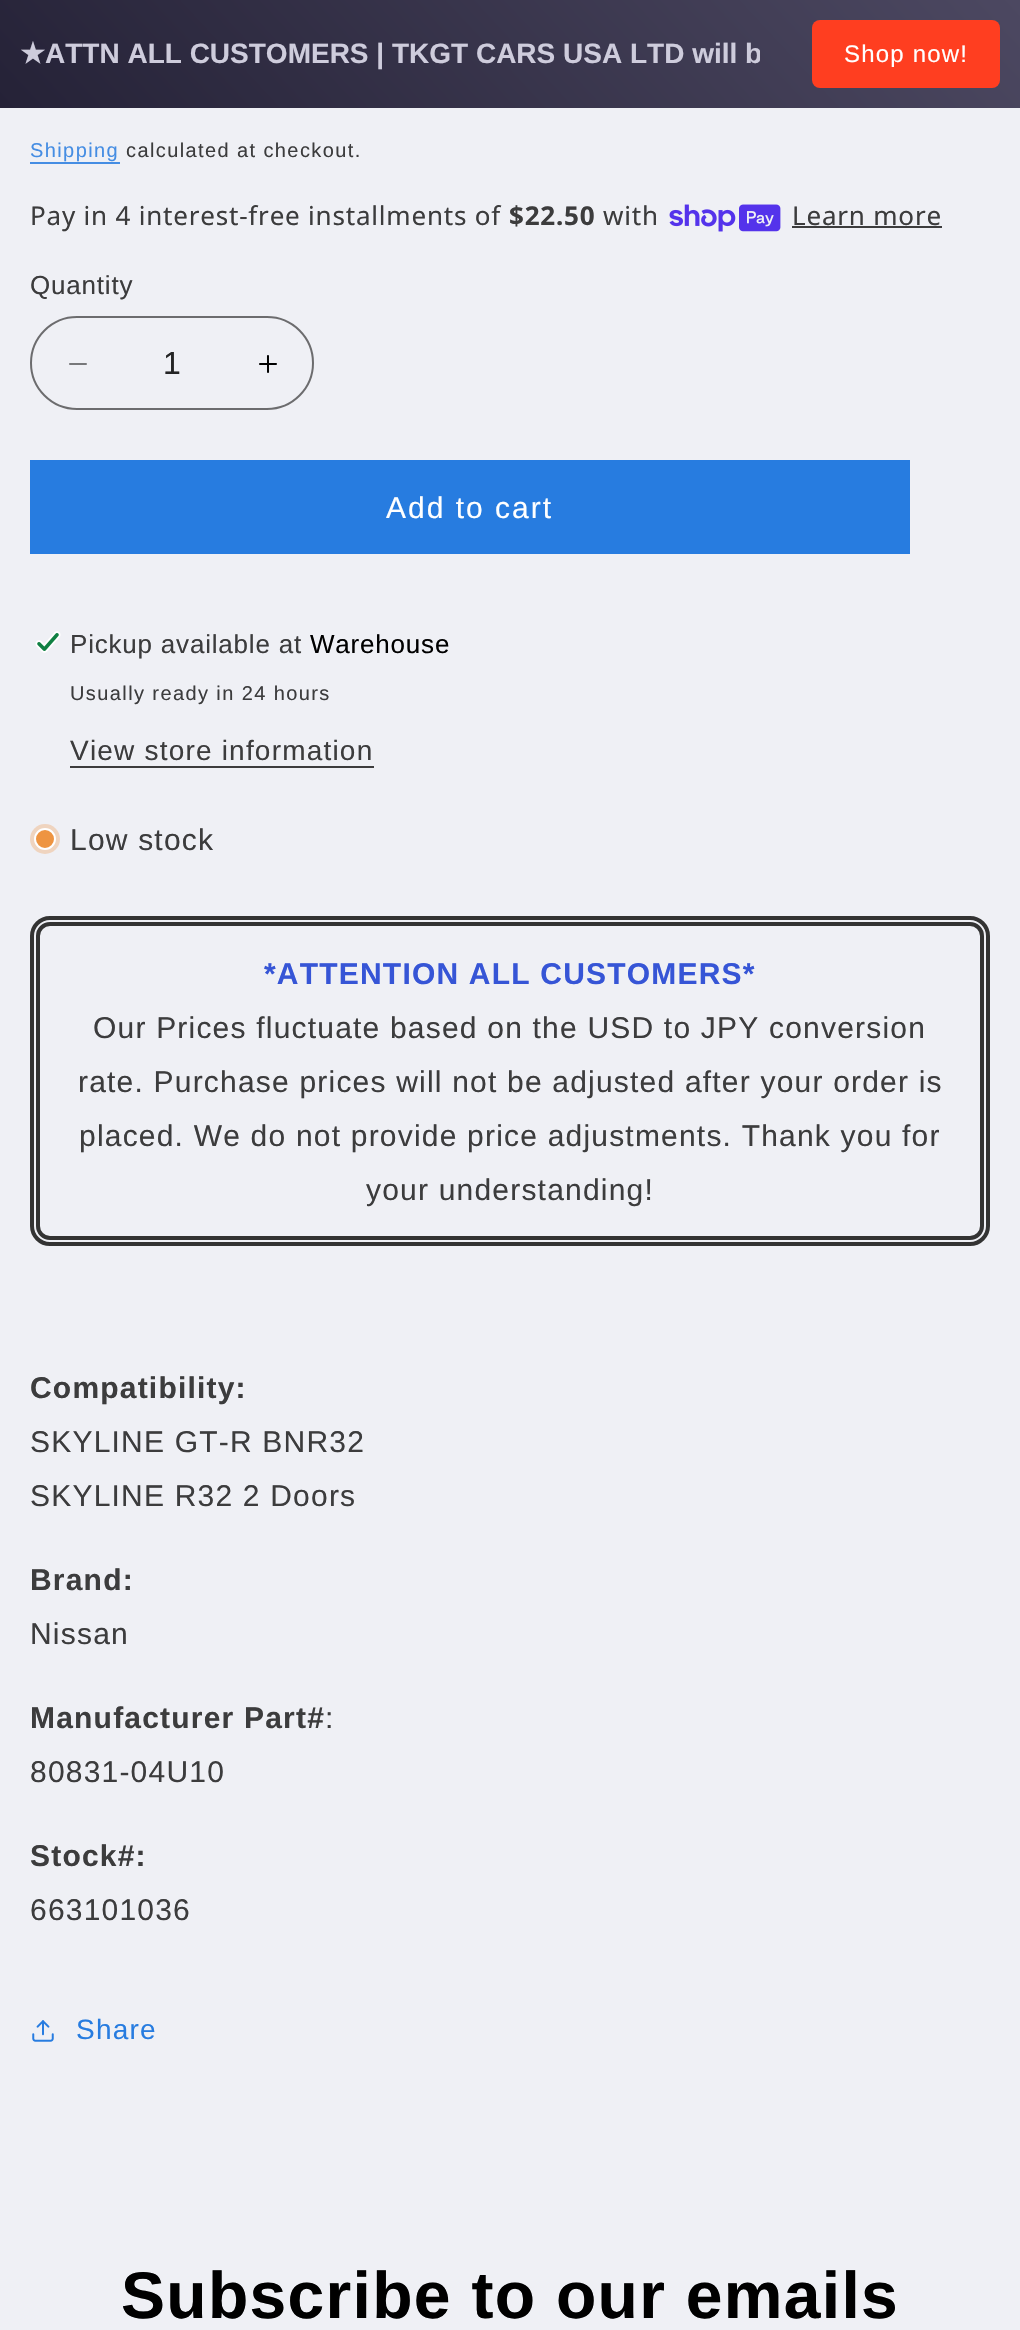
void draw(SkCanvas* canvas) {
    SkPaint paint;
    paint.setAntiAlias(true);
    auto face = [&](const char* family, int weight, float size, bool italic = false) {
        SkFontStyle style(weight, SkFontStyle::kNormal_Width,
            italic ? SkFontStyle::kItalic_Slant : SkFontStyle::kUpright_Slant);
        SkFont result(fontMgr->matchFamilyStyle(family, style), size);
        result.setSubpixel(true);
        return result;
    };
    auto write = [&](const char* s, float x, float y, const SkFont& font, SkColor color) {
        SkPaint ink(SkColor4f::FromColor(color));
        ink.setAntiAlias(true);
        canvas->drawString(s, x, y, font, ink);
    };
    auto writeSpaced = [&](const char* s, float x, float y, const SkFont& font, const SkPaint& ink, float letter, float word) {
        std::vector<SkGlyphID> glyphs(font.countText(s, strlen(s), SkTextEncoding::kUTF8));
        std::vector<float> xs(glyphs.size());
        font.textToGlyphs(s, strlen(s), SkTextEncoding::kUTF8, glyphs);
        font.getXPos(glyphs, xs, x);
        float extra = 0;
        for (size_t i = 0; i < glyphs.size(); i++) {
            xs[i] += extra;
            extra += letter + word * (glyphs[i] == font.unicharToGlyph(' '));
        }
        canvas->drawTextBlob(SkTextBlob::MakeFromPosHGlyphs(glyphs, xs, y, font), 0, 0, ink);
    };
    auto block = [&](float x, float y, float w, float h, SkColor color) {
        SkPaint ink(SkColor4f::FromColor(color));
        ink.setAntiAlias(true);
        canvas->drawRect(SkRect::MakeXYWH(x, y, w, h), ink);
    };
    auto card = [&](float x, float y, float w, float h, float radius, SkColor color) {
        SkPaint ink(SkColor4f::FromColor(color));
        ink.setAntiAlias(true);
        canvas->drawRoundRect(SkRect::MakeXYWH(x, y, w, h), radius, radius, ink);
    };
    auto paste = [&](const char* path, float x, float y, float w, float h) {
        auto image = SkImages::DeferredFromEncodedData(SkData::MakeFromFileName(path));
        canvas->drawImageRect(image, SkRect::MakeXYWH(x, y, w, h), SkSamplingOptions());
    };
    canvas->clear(SkColorSetRGB(239, 240, 245));
    {
        const SkColor colors[] = {SkColorSetRGB(37, 34, 55), SkColorSetRGB(76, 72, 97)};
        const float stops[] = {0, 1};
        const SkPoint ends[] = {{210, 333}, {810, -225}};
        paint.setShader(SkGradientShader::MakeLinear(ends, colors, stops, 2, SkTileMode::kClamp));
        paint.setAlpha(255);
    }
    canvas->drawRect(SkRect::MakeXYWH(0, 0, 1020, 108), paint);
    auto kFont1 = face("DejaVu Sans", 700, 28);
    write("★", 20, 63, kFont1, SkColorSetRGB(206, 204, 220));
    canvas->save();
    canvas->clipRect(SkRect::MakeXYWH(20, 38, 740, 32));
    auto kFont2 = face("Liberation Sans", 700, 28);
    write("ATTN ALL CUSTOMERS | TKGT CARS USA LTD will b", 45, 63, kFont2, SkColorSetRGB(206, 204, 220));
    canvas->restore();
    card(812, 20, 188, 68, 8, SkColorSetRGB(255, 62, 32));
    auto kFont3 = face("Liberation Sans", 400, 24);
    paint.setShader(nullptr);
    paint.setColor(SK_ColorWHITE);
    writeSpaced("Shop now!", 844, 62, kFont3, paint, 1.2f, 0);
    auto kFont4 = face("Liberation Sans", 400, 20);
    paint.setColor(SkColorSetRGB(69, 141, 227));
    writeSpaced("Shipping", 30, 157, kFont4, paint, 1.4f, 0);
    block(30, 162, 90, 2, SkColorSetRGB(69, 141, 227));
    paint.setColor(SkColorSetRGB(60, 60, 61));
    writeSpaced("calculated at checkout.", 126, 157, kFont4, paint, 1.4f, 0);
    auto kFont5 = face("Noto Sans", 400, 26);
    writeSpaced("Pay in 4 interest-free installments of", 30, 225, kFont5, paint, 0.8f, 0);
    auto kFont6 = face("Noto Sans", 700, 26);
    writeSpaced("$22.50", 509, 225, kFont6, paint, 0.8f, 0);
    writeSpaced("with", 603, 225, kFont5, paint, 0.8f, 0);
    paste("pic1.png", 669, 204, 112, 28);
    writeSpaced("Learn more", 792, 225, kFont5, paint, 0.8f, 0);
    block(792, 226, 150, 2, SkColorSetRGB(60, 60, 61));
    auto kFont7 = face("Liberation Sans", 400, 26);
    writeSpaced("Quantity", 30, 294, kFont7, paint, 0.8f, 0);
    paste("pic2.png", 69, 363, 18, 2);
    paste("pic3.png", 259, 355, 18, 18);
    paint.setStyle(SkPaint::kStroke_Style);
    paint.setStrokeWidth(2);
    paint.setColor(SkColorSetRGB(108, 108, 110));
    canvas->drawRoundRect(SkRect::MakeXYWH(31, 317, 282, 92), 46, 46, paint);
    auto kFont8 = face("Liberation Sans", 400, 32);
    write("1", 163, 374, kFont8, SkColorSetRGB(36, 36, 37));
    block(30, 460, 880, 94, SkColorSetRGB(39, 124, 224));
    auto kFont9 = face("Liberation Sans", 400, 30);
    paint.setStyle(SkPaint::kFill_Style);
    paint.setColor(SK_ColorWHITE);
    writeSpaced("Add to cart", 386, 518, kFont9, paint, 2, 0);
    paste("pic4.png", 35, 631, 26, 22);
    paint.setColor(SkColorSetRGB(60, 60, 61));
    writeSpaced("Pickup available at", 70, 653, kFont7, paint, 0.8f, 0);
    paint.setColor(SK_ColorBLACK);
    writeSpaced("Warehouse", 310, 653, kFont7, paint, 0.8f, 0);
    paint.setColor(SkColorSetRGB(60, 60, 61));
    writeSpaced("Usually ready in 24 hours", 70, 700, kFont4, paint, 1.4f, 0);
    auto kFont10 = face("Liberation Sans", 400, 28);
    writeSpaced("View store information", 70, 760, kFont10, paint, 1.2f, 0);
    block(70, 766, 304, 2, SkColorSetRGB(60, 60, 61));
    paint.setColor(SkColorSetRGB(239, 212, 191));
    canvas->drawCircle(45, 839, 15, paint);
    paint.setColor(SkColorSetRGB(238, 148, 65));
    canvas->drawCircle(45, 839, 10, paint);
    paint.setStyle(SkPaint::kStroke_Style);
    paint.setColor(SK_ColorWHITE);
    canvas->drawCircle(45, 839, 10, paint);
    paint.setStyle(SkPaint::kFill_Style);
    paint.setColor(SkColorSetRGB(60, 60, 61));
    writeSpaced("Low stock", 70, 850, kFont9, paint, 1.2f, 0);
    paint.setStyle(SkPaint::kStroke_Style);
    paint.setStrokeWidth(4);
    paint.setColor(SkColorSetRGB(51, 51, 51));
    canvas->drawRoundRect(SkRect::MakeXYWH(32, 918, 956, 326), 18, 18, paint);
    canvas->drawRoundRect(SkRect::MakeXYWH(38, 924, 944, 314), 12, 12, paint);
    auto kFont11 = face("Liberation Sans", 700, 30);
    paint.setStyle(SkPaint::kFill_Style);
    paint.setColor(SkColorSetRGB(54, 85, 214));
    writeSpaced("*ATTENTION ALL CUSTOMERS*", 264, 984, kFont11, paint, 1.2f, 0);
    paint.setColor(SkColorSetRGB(60, 60, 61));
    writeSpaced("Our Prices fluctuate based on the USD to JPY conversion", 93, 1038, kFont9, paint, 1.2f, 0);
    writeSpaced("rate. Purchase prices will not be adjusted after your order is", 78, 1092, kFont9, paint, 1.2f, 0);
    writeSpaced("placed. We do not provide price adjustments. Thank you for", 79, 1146, kFont9, paint, 1.2f, 0);
    writeSpaced("your understanding!", 366, 1200, kFont9, paint, 1.2f, 0);
    writeSpaced("Compatibility:", 30, 1398, kFont11, paint, 1.2f, 0);
    writeSpaced("SKYLINE GT-R BNR32", 30, 1452, kFont9, paint, 1.2f, 0);
    writeSpaced("SKYLINE R32 2 Doors", 30, 1506, kFont9, paint, 1.2f, 0);
    writeSpaced("Brand:", 30, 1590, kFont11, paint, 1.2f, 0);
    writeSpaced("Nissan", 30, 1644, kFont9, paint, 1.2f, 0);
    writeSpaced("Manufacturer Part#", 30, 1728, kFont11, paint, 1.2f, 0);
    writeSpaced(":", 325, 1728, kFont9, paint, 1.2f, 0);
    writeSpaced("80831-04U10", 30, 1782, kFont9, paint, 1.2f, 0);
    writeSpaced("Stock#:", 30, 1866, kFont11, paint, 1.2f, 0);
    writeSpaced("663101036", 30, 1920, kFont9, paint, 1.2f, 0);
    paste("pic5.png", 32, 2020, 22, 22);
    paint.setColor(SkColorSetRGB(39, 124, 224));
    writeSpaced("Share", 76, 2039, kFont10, paint, 1.2f, 0);
    auto kFont12 = face("Liberation Sans", 700, 66);
    paint.setColor(SK_ColorBLACK);
    writeSpaced("Subscribe to our emails", 121, 2318, kFont12, paint, 1.3f, 0);
}
